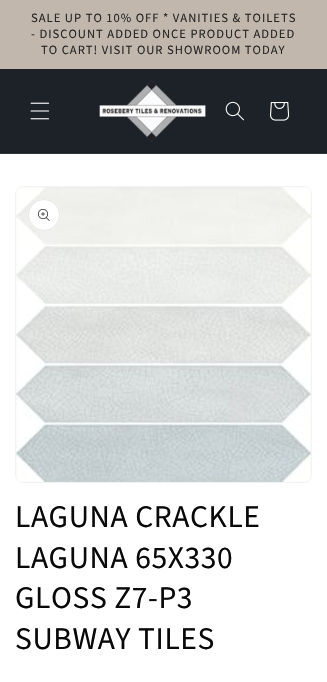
void draw(SkCanvas* canvas) {
    SkPaint paint;
    paint.setAntiAlias(true);
    auto face = [&](const char* family, int weight, float size, bool italic = false) {
        SkFontStyle style(weight, SkFontStyle::kNormal_Width,
            italic ? SkFontStyle::kItalic_Slant : SkFontStyle::kUpright_Slant);
        SkFont result(fontMgr->matchFamilyStyle(family, style), size);
        result.setSubpixel(true);
        return result;
    };
    auto writeSpaced = [&](const char* s, float x, float y, const SkFont& font, const SkPaint& ink, float letter, float word) {
        std::vector<SkGlyphID> glyphs(font.countText(s, strlen(s), SkTextEncoding::kUTF8));
        std::vector<float> xs(glyphs.size());
        font.textToGlyphs(s, strlen(s), SkTextEncoding::kUTF8, glyphs);
        font.getXPos(glyphs, xs, x);
        float extra = 0;
        for (size_t i = 0; i < glyphs.size(); i++) {
            xs[i] += extra;
            extra += letter + word * (glyphs[i] == font.unicharToGlyph(' '));
        }
        canvas->drawTextBlob(SkTextBlob::MakeFromPosHGlyphs(glyphs, xs, y, font), 0, 0, ink);
    };
    auto block = [&](float x, float y, float w, float h, SkColor color) {
        SkPaint ink(SkColor4f::FromColor(color));
        ink.setAntiAlias(true);
        canvas->drawRect(SkRect::MakeXYWH(x, y, w, h), ink);
    };
    auto paste = [&](const char* path, float x, float y, float w, float h) {
        auto image = SkImages::DeferredFromEncodedData(SkData::MakeFromFileName(path));
        canvas->drawImageRect(image, SkRect::MakeXYWH(x, y, w, h), SkSamplingOptions());
    };
    canvas->clear(SK_ColorWHITE);
    block(0, 0, 327, 69, SkColorSetRGB(194, 183, 172));
    auto kFont1 = face("Source Sans Pro", 400, 12.6f);
    paint.setColor(SkColorSetRGB(38, 38, 38));
    writeSpaced("SALE UP TO 10% OFF * VANITIES & TOILETS", 31, 22, kFont1, paint, 1, 0);
    writeSpaced("- DISCOUNT ADDED ONCE PRODUCT ADDED", 31, 38, kFont1, paint, 1, 0);
    writeSpaced("TO CART! VISIT OUR SHOWROOM TODAY", 41, 54, kFont1, paint, 1, 0);
    block(0, 69, 327, 84, SkColorSetRGB(28, 34, 40));
    block(0, 153, 327, 1, SkColorSetRGB(46, 52, 57));
    paste("pic1.png", 30, 102, 20, 18);
    paste("pic2.png", 99, 80, 107, 62);
    paste("pic3.png", 225, 101, 19, 20);
    paste("pic4.png", 270, 102, 20, 19);
    paint.setStyle(SkPaint::kStroke_Style);
    paint.setStrokeWidth(1);
    paint.setColor(SkColorSetRGB(243, 243, 243));
    canvas->drawRoundRect(SkRect::MakeXYWH(15.5f, 186.5f, 296, 296), 7.5f, 7.5f, paint);
    paste("pic5.png", 16, 187, 295, 295);
    paint.setStyle(SkPaint::kFill_Style);
    paint.setColor(SK_ColorWHITE);
    canvas->drawCircle(44, 215, 16, paint);
    paint.setStyle(SkPaint::kStroke_Style);
    paint.setColor(SkColorSetARGB(26, 9, 9, 9));
    canvas->drawCircle(44, 215, 15.5f, paint);
    paste("pic6.png", 38, 209, 12, 12);
    auto kFont2 = face("Source Sans Pro", 400, 31.5f);
    paint.setStyle(SkPaint::kFill_Style);
    paint.setColor(SkColorSetRGB(9, 9, 9));
    writeSpaced("LAGUNA CRACKLE", 15, 527, kFont2, paint, 0.6f, 0);
    writeSpaced("LAGUNA 65X330", 15, 568, kFont2, paint, 0.6f, 0);
    writeSpaced("GLOSS Z7-P3", 15, 608, kFont2, paint, 0.6f, 0);
    writeSpaced("SUBWAY TILES", 15, 649, kFont2, paint, 0.6f, 0);
}
